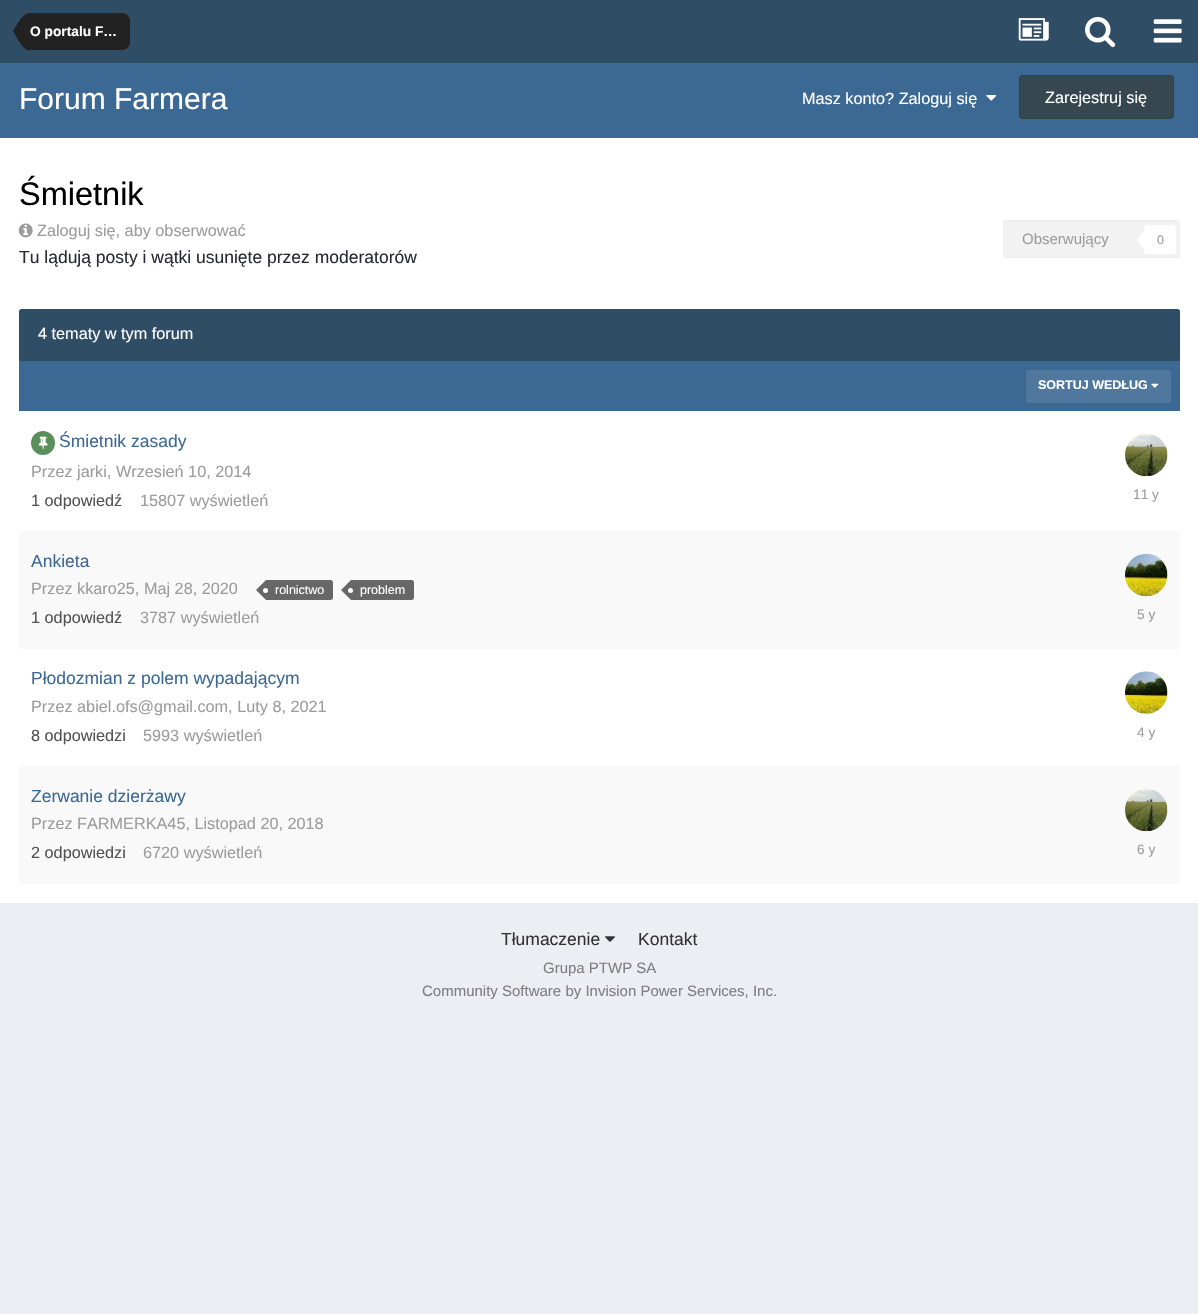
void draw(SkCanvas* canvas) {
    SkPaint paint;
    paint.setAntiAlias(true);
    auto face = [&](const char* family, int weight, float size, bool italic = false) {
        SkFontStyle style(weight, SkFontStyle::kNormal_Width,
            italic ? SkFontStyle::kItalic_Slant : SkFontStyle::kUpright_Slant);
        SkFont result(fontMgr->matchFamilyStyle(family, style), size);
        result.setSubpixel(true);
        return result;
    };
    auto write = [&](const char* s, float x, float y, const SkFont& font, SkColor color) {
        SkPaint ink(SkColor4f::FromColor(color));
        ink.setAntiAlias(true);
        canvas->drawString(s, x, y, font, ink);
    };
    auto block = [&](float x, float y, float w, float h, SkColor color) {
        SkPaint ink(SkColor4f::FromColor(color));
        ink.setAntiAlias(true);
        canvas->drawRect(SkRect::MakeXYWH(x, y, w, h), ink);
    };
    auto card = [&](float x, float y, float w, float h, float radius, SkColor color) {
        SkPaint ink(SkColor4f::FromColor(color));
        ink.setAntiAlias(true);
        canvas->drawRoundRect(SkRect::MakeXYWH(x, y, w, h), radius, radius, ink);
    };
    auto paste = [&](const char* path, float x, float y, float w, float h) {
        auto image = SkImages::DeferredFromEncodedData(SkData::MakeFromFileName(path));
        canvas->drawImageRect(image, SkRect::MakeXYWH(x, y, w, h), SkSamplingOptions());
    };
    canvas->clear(SkColorSetRGB(235, 238, 242));
    block(0, 0, 1198, 63, SkColorSetRGB(48, 77, 102));
    paint.setColor(SkColorSetRGB(34, 34, 34));
    canvas->drawPath(SkPathBuilder().moveTo(30, 13).lineTo(122, 13).cubicTo(126.5f, 13, 130, 16.5f, 130, 21).lineTo(130, 42).cubicTo(130, 46.5f, 126.5f, 50, 122, 50).lineTo(30, 50).close().detach(), paint);
    canvas->drawPath(SkPathBuilder().moveTo(13, 31).lineTo(30, 31).lineTo(30, 50.5f).cubicTo(28, 50.5f, 25.5f, 49.5f, 23, 47).lineTo(18, 40).close().moveTo(30, 13).lineTo(30, 31).lineTo(13, 31).lineTo(13, 30.5f).lineTo(20.5f, 19).lineTo(24, 15.5f).cubicTo(25.5f, 14, 27.5f, 13, 30, 13).close().detach(), paint);
    auto kFont1 = face("Liberation Sans", 700, 13.75f);
    write("O portalu F…", 30, 36, kFont1, SK_ColorWHITE);
    paste("pic1.png", 1018, 18, 31, 23);
    paste("pic2.png", 1085, 17, 31, 31);
    paste("pic3.png", 1153, 19, 29, 24);
    block(0, 63, 1198, 75, SkColorSetRGB(60, 105, 148));
    auto kFont2 = face("Liberation Sans", 400, 30);
    write("Forum Farmera", 19, 109, kFont2, SK_ColorWHITE);
    auto kFont3 = face("Liberation Sans", 400, 16.25f);
    write("Masz konto? Zaloguj się", 802, 104, kFont3, SK_ColorWHITE);
    paste("pic4.png", 986, 95, 11, 6);
    card(1019, 75, 155, 44, 4, SkColorSetRGB(55, 71, 79));
    paint.setStyle(SkPaint::kStroke_Style);
    paint.setStrokeWidth(1);
    paint.setColor(SkColorSetARGB(26, 0, 0, 0));
    canvas->drawRoundRect(SkRect::MakeXYWH(1019.5f, 75.5f, 154, 43), 3.5f, 3.5f, paint);
    write("Zarejestruj się", 1045, 103, kFont3, SK_ColorWHITE);
    block(0, 138, 1198, 765, SK_ColorWHITE);
    auto kFont4 = face("Liberation Sans", 400, 32.5f);
    write("Śmietnik", 19, 205, kFont4, SK_ColorBLACK);
    paste("pic5.png", 18, 223, 15, 15);
    write("Zaloguj się, aby obserwować", 37, 236, kFont3, SkColorSetRGB(156, 156, 156));
    card(1003, 220, 177, 38, 4, SkColorSetRGB(242, 242, 242));
    paint.setColor(SkColorSetARGB(8, 128, 128, 128));
    canvas->drawRect(SkRect::MakeXYWH(1003.5f, 220.5f, 176, 37), paint);
    auto kFont5 = face("Liberation Sans", 400, 15);
    write("Obserwujący", 1022, 244, kFont5, SkColorSetRGB(156, 156, 156));
    card(1144, 225, 32, 29, 4, SK_ColorWHITE);
    paint.setStyle(SkPaint::kFill_Style);
    paint.setColor(SK_ColorWHITE);
    canvas->drawPath(SkPathBuilder().moveTo(1144, 231).lineTo(1144, 249).lineTo(1137.5f, 240).close().detach(), paint);
    auto kFont6 = face("Liberation Sans", 400, 12.5f);
    write("0", 1157, 244, kFont6, SkColorSetRGB(156, 156, 156));
    auto kFont7 = face("Liberation Sans", 400, 17.5f);
    write("Tu lądują posty i wątki usunięte przez moderatorów", 19, 263, kFont7, SkColorSetRGB(39, 42, 52));
    paint.setColor(SkColorSetRGB(48, 77, 102));
    canvas->drawPath(SkPathBuilder().moveTo(21.5f, 309).lineTo(1177.5f, 309).cubicTo(1179, 309, 1180, 310, 1180, 311.5f).lineTo(1180, 361).lineTo(19, 361).lineTo(19, 311.5f).cubicTo(19, 310, 20, 309, 21.5f, 309).close().detach(), paint);
    write("4 tematy w tym forum", 38, 339, kFont3, SK_ColorWHITE);
    block(19, 361, 1161, 50, SkColorSetRGB(60, 105, 148));
    card(1026, 370, 145, 33, 2.5f, SkColorSetRGB(80, 120, 159));
    auto kFont8 = face("Liberation Sans", 700, 12.5f);
    write("SORTUJ WEDŁUG", 1038, 389, kFont8, SK_ColorWHITE);
    paste("pic6.png", 1151, 383, 8, 5);
    paint.setColor(SkColorSetRGB(89, 143, 91));
    canvas->drawCircle(43, 443, 12, paint);
    paste("pic7.png", 38, 436, 10, 14);
    write("Śmietnik zasady", 59, 447, kFont7, SkColorSetRGB(60, 105, 148));
    write("Przez jarki, Wrzesień 10, 2014", 31, 477, kFont3, SkColorSetRGB(156, 156, 156));
    write("1 odpowiedź", 31, 506, kFont3, SkColorSetRGB(82, 82, 82));
    write("15807 wyświetleń", 140, 506, kFont3, SkColorSetRGB(156, 156, 156));
    paste("pic8.png", 1125, 434, 43, 43);
    auto kFont9 = face("Liberation Sans", 400, 13.75f);
    write("11 y", 1133, 499, kFont9, SkColorSetRGB(156, 156, 156));
    block(19, 531, 1161, 118, SkColorSetRGB(249, 249, 249));
    write("Ankieta", 31, 567, kFont7, SkColorSetRGB(60, 105, 148));
    write("Przez kkaro25, Maj 28, 2020", 31, 594, kFont3, SkColorSetRGB(156, 156, 156));
    paint.setColor(SkColorSetRGB(103, 103, 103));
    canvas->drawPath(SkPathBuilder().moveTo(266, 580).lineTo(330.5f, 580).cubicTo(332, 580, 333, 581, 333, 582.5f).lineTo(333, 597.5f).cubicTo(333, 599, 332, 600, 330.5f, 600).lineTo(266, 600).close().detach(), paint);
    canvas->drawPath(SkPathBuilder().moveTo(266, 580).lineTo(266, 600).lineTo(256, 590).close().detach(), paint);
    write("rolnictwo", 275, 594, kFont6, SK_ColorWHITE);
    paint.setColor(SK_ColorWHITE);
    canvas->drawCircle(265.5f, 590.5f, 2.5f, paint);
    paint.setColor(SkColorSetRGB(103, 103, 103));
    canvas->drawPath(SkPathBuilder().moveTo(351, 580).lineTo(411.5f, 580).cubicTo(413, 580, 414, 581, 414, 582.5f).lineTo(414, 597.5f).cubicTo(414, 599, 413, 600, 411.5f, 600).lineTo(351, 600).close().detach(), paint);
    canvas->drawPath(SkPathBuilder().moveTo(351, 580).lineTo(351, 600).lineTo(341, 590).close().detach(), paint);
    write("problem", 360, 594, kFont6, SK_ColorWHITE);
    paint.setColor(SK_ColorWHITE);
    canvas->drawCircle(350.5f, 590.5f, 2.5f, paint);
    write("1 odpowiedź", 31, 623, kFont3, SkColorSetRGB(82, 82, 82));
    write("3787 wyświetleń", 140, 623, kFont3, SkColorSetRGB(156, 156, 156));
    card(1125, 554, 43, 42, 21, SK_ColorWHITE);
    paste("pic9.png", 1125, 553, 43, 44);
    write("5 y", 1137, 619, kFont9, SkColorSetRGB(156, 156, 156));
    write("Płodozmian z polem wypadającym", 31, 684, kFont7, SkColorSetRGB(60, 105, 148));
    write("Przez abiel.ofs@gmail.com, Luty 8, 2021", 31, 712, kFont3, SkColorSetRGB(156, 156, 156));
    write("8 odpowiedzi", 31, 741, kFont3, SkColorSetRGB(82, 82, 82));
    write("5993 wyświetleń", 143, 741, kFont3, SkColorSetRGB(156, 156, 156));
    paste("pic10.png", 1125, 671, 43, 43);
    write("4 y", 1137, 737, kFont9, SkColorSetRGB(156, 156, 156));
    block(19, 766, 1161, 118, SkColorSetRGB(249, 249, 249));
    write("Zerwanie dzierżawy", 31, 802, kFont7, SkColorSetRGB(60, 105, 148));
    write("Przez FARMERKA45, Listopad 20, 2018", 31, 829, kFont3, SkColorSetRGB(156, 156, 156));
    write("2 odpowiedzi", 31, 858, kFont3, SkColorSetRGB(82, 82, 82));
    write("6720 wyświetleń", 143, 858, kFont3, SkColorSetRGB(156, 156, 156));
    card(1125, 789, 43, 42, 21, SK_ColorWHITE);
    paste("pic11.png", 1125, 789, 43, 43);
    write("6 y", 1137, 854, kFont9, SkColorSetRGB(156, 156, 156));
    write("Tłumaczenie", 501, 945, kFont7, SkColorSetRGB(51, 51, 51));
    paste("pic12.png", 605, 936, 10, 6);
    write("Kontakt", 638, 945, kFont7, SkColorSetRGB(51, 51, 51));
    write("Grupa PTWP SA", 543, 973, kFont5, SkColorSetRGB(125, 126, 127));
    write("Community Software by Invision Power Services, Inc.", 422, 996, kFont5, SkColorSetRGB(125, 126, 127));
}
